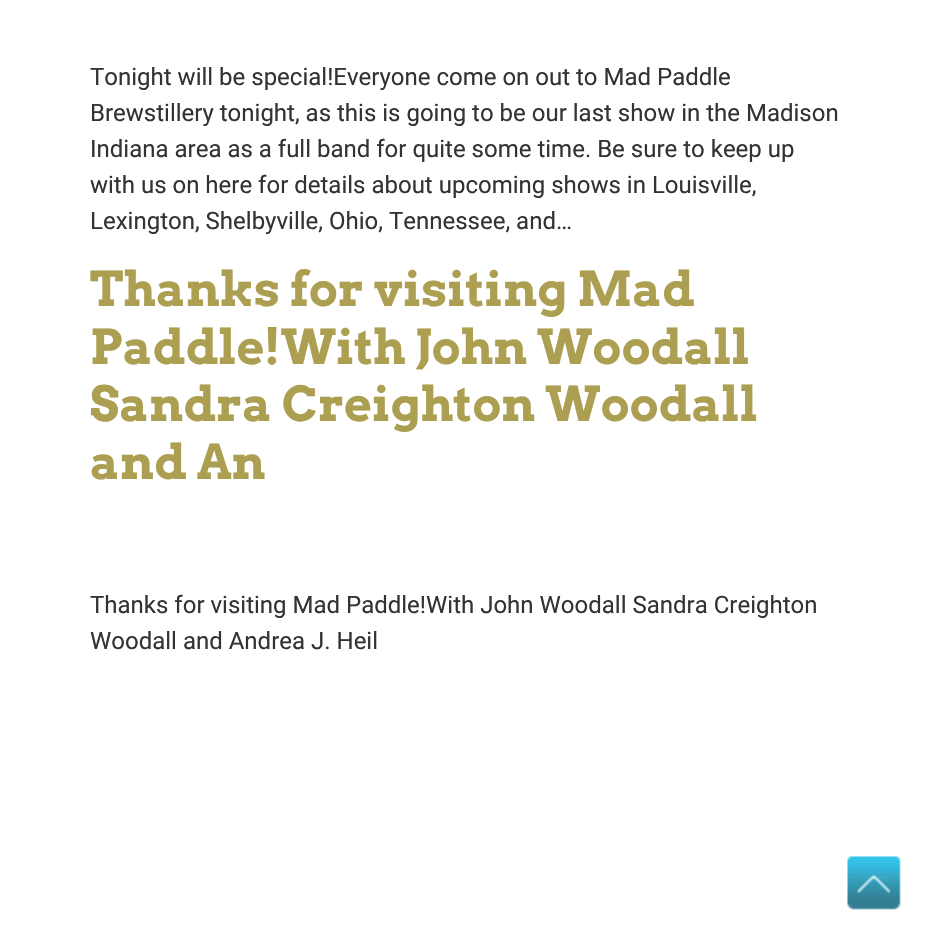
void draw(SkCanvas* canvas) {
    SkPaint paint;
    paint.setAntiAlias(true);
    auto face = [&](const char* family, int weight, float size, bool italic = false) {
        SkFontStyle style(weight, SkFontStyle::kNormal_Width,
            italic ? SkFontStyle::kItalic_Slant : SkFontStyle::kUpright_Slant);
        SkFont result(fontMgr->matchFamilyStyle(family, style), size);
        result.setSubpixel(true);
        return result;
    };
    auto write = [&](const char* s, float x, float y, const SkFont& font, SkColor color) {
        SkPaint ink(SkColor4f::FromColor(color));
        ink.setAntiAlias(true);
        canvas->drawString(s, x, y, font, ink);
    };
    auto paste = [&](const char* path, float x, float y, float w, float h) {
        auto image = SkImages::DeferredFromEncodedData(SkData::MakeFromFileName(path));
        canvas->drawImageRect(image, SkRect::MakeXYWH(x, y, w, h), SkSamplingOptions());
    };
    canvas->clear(SK_ColorWHITE);
    auto kFont1 = face("Roboto", 400, 24);
    write("Tonight will be special!Everyone come on out to Mad Paddle", 90, 85, kFont1, SkColorSetRGB(51, 51, 51));
    write("Brewstillery tonight, as this is going to be our last show in the Madison", 90, 121, kFont1, SkColorSetRGB(51, 51, 51));
    write("Indiana area as a full band for quite some time. Be sure to keep up", 90, 157, kFont1, SkColorSetRGB(51, 51, 51));
    write("with us on here for details about upcoming shows in Louisville,", 90, 193, kFont1, SkColorSetRGB(51, 51, 51));
    write("Lexington, Shelbyville, Ohio, Tennessee, and…", 90, 229, kFont1, SkColorSetRGB(51, 51, 51));
    auto kFont2 = face("Arvo", 700, 48);
    write("Thanks for visiting Mad", 90, 306, kFont2, SkColorSetRGB(173, 159, 82));
    write("Paddle!With John Woodall", 90, 364, kFont2, SkColorSetRGB(173, 159, 82));
    write("Sandra Creighton Woodall", 90, 421, kFont2, SkColorSetRGB(173, 159, 82));
    write("and An", 90, 479, kFont2, SkColorSetRGB(173, 159, 82));
    write("Thanks for visiting Mad Paddle!With John Woodall Sandra Creighton", 90, 613, kFont1, SkColorSetRGB(51, 51, 51));
    write("Woodall and Andrea J. Heil", 90, 649, kFont1, SkColorSetRGB(51, 51, 51));
    paste("pic1.png", 847, 856, 54, 54);
}
